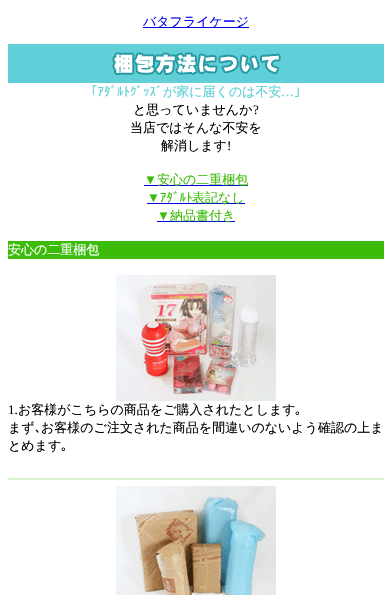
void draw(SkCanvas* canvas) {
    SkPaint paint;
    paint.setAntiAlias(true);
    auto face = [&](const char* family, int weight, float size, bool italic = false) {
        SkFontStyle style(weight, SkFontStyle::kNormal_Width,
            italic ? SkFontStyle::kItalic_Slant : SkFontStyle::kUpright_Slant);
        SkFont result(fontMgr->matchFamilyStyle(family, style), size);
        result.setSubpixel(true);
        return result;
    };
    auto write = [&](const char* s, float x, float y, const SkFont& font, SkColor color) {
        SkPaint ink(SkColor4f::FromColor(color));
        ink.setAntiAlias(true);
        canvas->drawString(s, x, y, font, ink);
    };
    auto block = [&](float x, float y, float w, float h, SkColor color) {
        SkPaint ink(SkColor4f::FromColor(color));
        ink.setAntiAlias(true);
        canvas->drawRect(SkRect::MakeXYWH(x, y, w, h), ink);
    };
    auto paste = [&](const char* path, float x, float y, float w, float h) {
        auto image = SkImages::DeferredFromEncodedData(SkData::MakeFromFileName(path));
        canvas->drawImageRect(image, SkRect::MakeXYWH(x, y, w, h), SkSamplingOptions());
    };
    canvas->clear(SK_ColorWHITE);
    block(143, 27, 106, 1, SkColorSetRGB(0, 0, 238));
    auto kFont1 = face("WenQuanYi Zen Hei", 500, 13);
    write("バタフライケージ", 143, 26, kFont1, SkColorSetRGB(0, 0, 238));
    block(8, 44, 376, 39, SkColorSetRGB(96, 207, 215));
    paste("pic1.png", 112, 44, 169, 39);
    auto kFont2 = face("IPAGothic", 400, 13);
    write("｢ｱﾀﾞﾙﾄｸﾞｯｽﾞ", 91, 96, kFont2, SkColorSetRGB(96, 207, 215));
    write("が家に届くのは不安", 163, 96, kFont1, SkColorSetRGB(96, 207, 215));
    auto kFont3 = face("Liberation Serif", 400, 13);
    write("…", 281, 96, kFont3, SkColorSetRGB(96, 207, 215));
    write("｣", 294, 96, kFont2, SkColorSetRGB(96, 207, 215));
    write("と思っていませんか", 133, 114, kFont1, SK_ColorBLACK);
    write("?", 253, 114, kFont3, SK_ColorBLACK);
    write("当店ではそんな不安を", 130, 132, kFont1, SK_ColorBLACK);
    write("解消します", 161, 150, kFont1, SK_ColorBLACK);
    write("!", 227, 150, kFont3, SK_ColorBLACK);
    write("▼", 144, 184, kFont3, SkColorSetRGB(58, 188, 8));
    block(144, 185, 104, 1, SkColorSetRGB(0, 0, 238));
    write("安心の二重梱包", 157, 184, kFont1, SkColorSetRGB(58, 188, 8));
    write("▼", 147, 202, kFont3, SkColorSetRGB(58, 188, 8));
    block(147, 203, 98, 1, SkColorSetRGB(0, 0, 238));
    write("ｱﾀﾞﾙﾄ", 160, 202, kFont2, SkColorSetRGB(58, 188, 8));
    write("表記なし", 192, 202, kFont1, SkColorSetRGB(58, 188, 8));
    write("▼", 157, 220, kFont3, SkColorSetRGB(58, 188, 8));
    block(157, 221, 78, 1, SkColorSetRGB(0, 0, 238));
    write("納品書付き", 170, 220, kFont1, SkColorSetRGB(58, 188, 8));
    block(8, 241, 376, 18, SkColorSetRGB(58, 188, 8));
    write("安心の二重梱包", 8, 254, kFont1, SK_ColorWHITE);
    paste("pic2.png", 116, 275, 160, 126);
    write("1.", 8, 414, kFont3, SK_ColorBLACK);
    write("お客様がこちらの商品をご購入されたとします", 18, 414, kFont1, SK_ColorBLACK);
    write("｡", 295, 414, kFont2, SK_ColorBLACK);
    write("まず", 8, 432, kFont1, SK_ColorBLACK);
    write("､", 35, 432, kFont2, SK_ColorBLACK);
    write("お客様のご注文された商品を間違いのないよう確認の上ま", 41, 432, kFont1, SK_ColorBLACK);
    write("とめます", 8, 450, kFont1, SK_ColorBLACK);
    write("｡", 61, 450, kFont2, SK_ColorBLACK);
    block(8, 478, 376, 2, SkColorSetRGB(216, 242, 206));
    paste("pic3.png", 116, 486, 160, 109);
}
